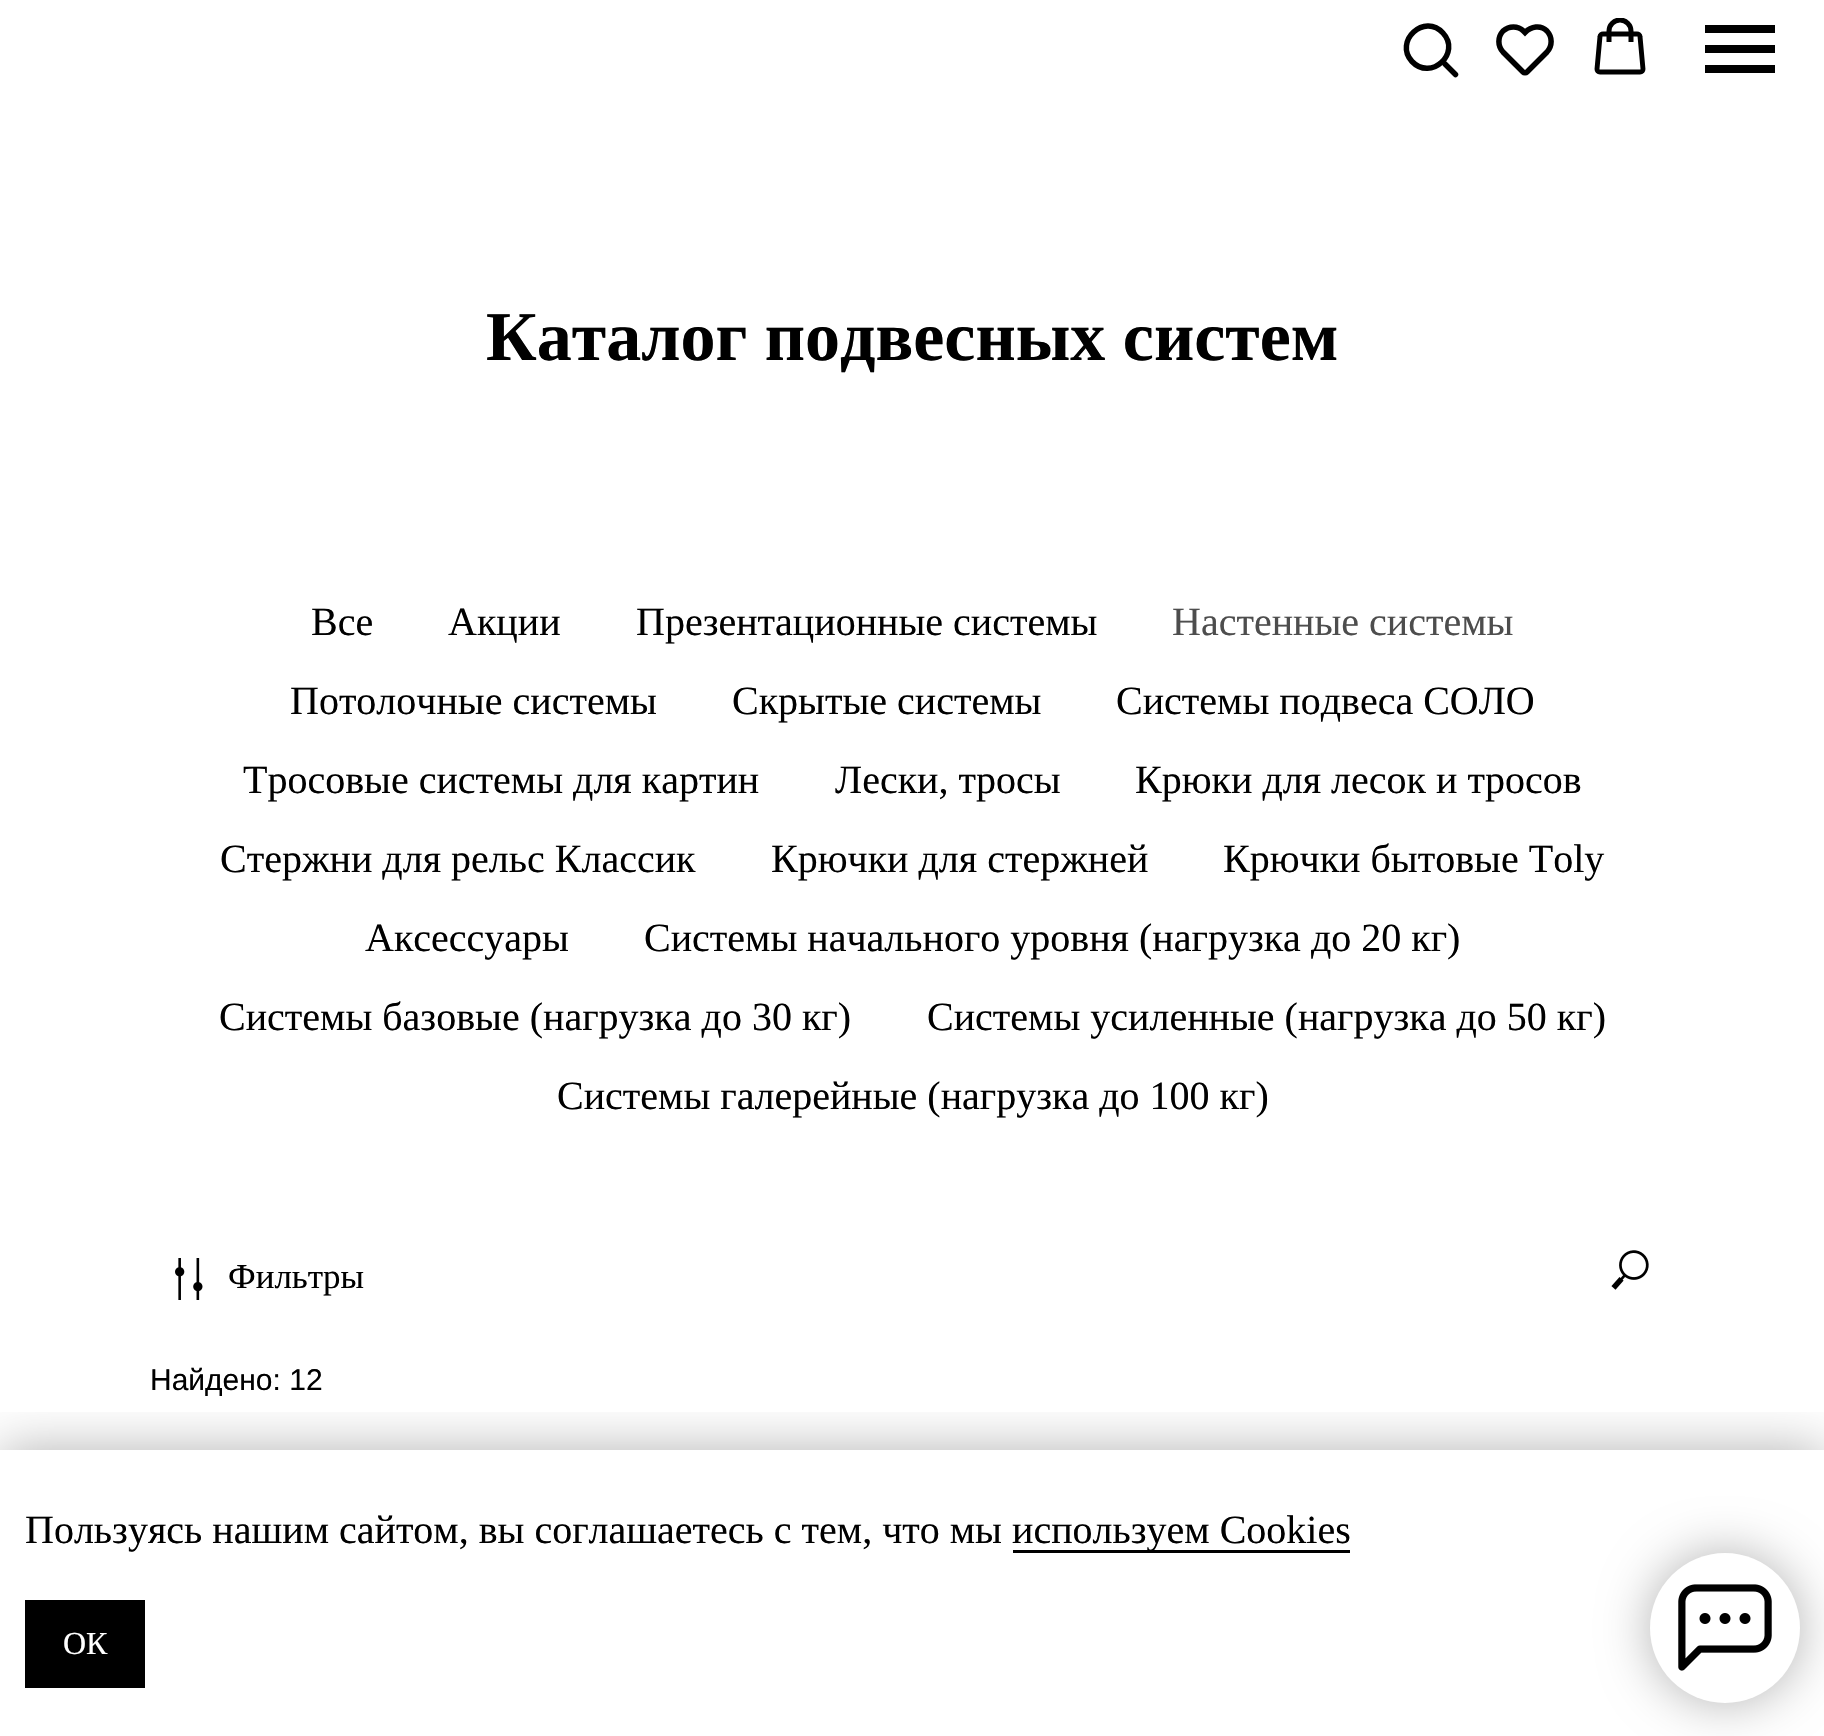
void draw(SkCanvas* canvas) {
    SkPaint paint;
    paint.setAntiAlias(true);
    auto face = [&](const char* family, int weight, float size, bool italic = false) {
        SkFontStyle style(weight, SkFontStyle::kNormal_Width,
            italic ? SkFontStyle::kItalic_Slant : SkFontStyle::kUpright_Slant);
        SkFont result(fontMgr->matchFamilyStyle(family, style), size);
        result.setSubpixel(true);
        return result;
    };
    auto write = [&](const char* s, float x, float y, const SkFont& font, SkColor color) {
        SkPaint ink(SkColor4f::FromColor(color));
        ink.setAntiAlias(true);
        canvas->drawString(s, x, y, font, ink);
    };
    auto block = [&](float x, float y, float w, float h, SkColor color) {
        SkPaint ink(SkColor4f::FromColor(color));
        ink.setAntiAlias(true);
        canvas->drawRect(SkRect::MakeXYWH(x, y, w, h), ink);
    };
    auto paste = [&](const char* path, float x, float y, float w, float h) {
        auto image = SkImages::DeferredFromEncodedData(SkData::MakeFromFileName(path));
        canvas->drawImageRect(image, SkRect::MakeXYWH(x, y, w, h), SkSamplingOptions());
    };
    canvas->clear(SK_ColorWHITE);
    paint.setStyle(SkPaint::kStroke_Style);
    paint.setStrokeWidth(5.5f);
    paint.setColor(SK_ColorBLACK);
    canvas->drawPath(SkPathBuilder().moveTo(1443, 33).cubicTo(1461.5f, 53, 1431, 81.5f, 1412, 61.5f).cubicTo(1393.5f, 41.5f, 1424.5f, 12.5f, 1443, 33).close().detach(), paint);
    paint.setStrokeCap(SkPaint::kRound_Cap);
    canvas->drawPath(SkPathBuilder().moveTo(1445, 64).lineTo(1455.5f, 74.5f).detach(), paint);
    canvas->drawPath(SkPathBuilder().moveTo(1547, 31).cubicTo(1552.5f, 37, 1552.5f, 46, 1547, 52).lineTo(1527, 72).cubicTo(1526, 73, 1524, 73, 1523, 72).lineTo(1503, 52).cubicTo(1497.5f, 46, 1497.5f, 37, 1503, 31).cubicTo(1509, 25.5f, 1518, 25.5f, 1523.5f, 31).lineTo(1525, 32.5f).cubicTo(1531, 26.5f, 1540.5f, 24.5f, 1547, 31).close().detach(), paint);
    paint.setStrokeWidth(4.9f);
    paint.setStrokeCap(SkPaint::kButt_Cap);
    canvas->drawPath(SkPathBuilder().moveTo(1600, 36.5f).cubicTo(1600, 35, 1601.5f, 34, 1603, 34).lineTo(1637, 34).cubicTo(1638.5f, 34, 1640, 35, 1640, 36.5f).lineTo(1643, 69).cubicTo(1643, 70.5f, 1642, 72, 1640, 72).lineTo(1600, 72).cubicTo(1598, 72, 1597, 70.5f, 1597, 69).close().detach(), paint);
    canvas->save();
    canvas->clipRect(SkRect::MakeXYWH(1590, 18, 60, 60));
    paint.setStrokeWidth(5);
    canvas->drawPath(SkPathBuilder().moveTo(1631, 42).lineTo(1631, 31).cubicTo(1631, 25, 1626, 20, 1620, 20).cubicTo(1614, 20, 1609, 25, 1609, 31).lineTo(1609, 42).detach(), paint);
    canvas->restore();
    block(1705, 25, 70, 8, SK_ColorBLACK);
    block(1705, 45, 70, 8, SK_ColorBLACK);
    block(1705, 65, 70, 8, SK_ColorBLACK);
    auto kFont1 = face("Liberation Serif", 700, 70);
    write("Каталог подвесных систем", 486, 360, kFont1, SK_ColorBLACK);
    auto kFont2 = face("Liberation Serif", 400, 40);
    write("Все", 311, 635, kFont2, SK_ColorBLACK);
    write("Акции", 448, 635, kFont2, SK_ColorBLACK);
    write("Презентационные системы", 636, 635, kFont2, SK_ColorBLACK);
    write("Настенные системы", 1172, 635, kFont2, SkColorSetRGB(77, 77, 77));
    write("Потолочные системы", 290, 714, kFont2, SK_ColorBLACK);
    write("Скрытые системы", 732, 714, kFont2, SK_ColorBLACK);
    write("Системы подвеса СОЛО", 1116, 714, kFont2, SK_ColorBLACK);
    write("Тросовые системы для картин", 243, 793, kFont2, SK_ColorBLACK);
    write("Лески, тросы", 835, 793, kFont2, SK_ColorBLACK);
    write("Крюки для лесок и тросов", 1135, 793, kFont2, SK_ColorBLACK);
    write("Стержни для рельс Классик", 220, 872, kFont2, SK_ColorBLACK);
    write("Крючки для стержней", 771, 872, kFont2, SK_ColorBLACK);
    write("Крючки бытовые Toly", 1223, 872, kFont2, SK_ColorBLACK);
    write("Аксессуары", 365, 951, kFont2, SK_ColorBLACK);
    write("Системы начального уровня (нагрузка до 20 кг)", 644, 951, kFont2, SK_ColorBLACK);
    write("Системы базовые (нагрузка до 30 кг)", 219, 1030, kFont2, SK_ColorBLACK);
    write("Системы усиленные (нагрузка до 50 кг)", 927, 1030, kFont2, SK_ColorBLACK);
    write("Системы галерейные (нагрузка до 100 кг)", 557, 1109, kFont2, SK_ColorBLACK);
    paste("pic1.png", 175, 1258, 28, 42);
    auto kFont3 = face("Liberation Serif", 400, 35);
    write("Фильтры", 228, 1288, kFont3, SK_ColorBLACK);
    paste("pic2.png", 1611, 1250, 38, 40);
    auto kFont4 = face("Liberation Sans", 400, 30);
    write("Найдено: 12", 150, 1390, kFont4, SK_ColorBLACK);
    canvas->save();
    canvas->clipRect(SkRect::MakeXYWH(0, 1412, 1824, 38));
    paint.setStyle(SkPaint::kFill_Style);
    paint.setColor(SkColorSetARGB(77, 0, 0, 0));
    paint.setMaskFilter(SkMaskFilter::MakeBlur(kNormal_SkBlurStyle, 25));
    canvas->drawRect(SkRect::MakeXYWH(0, 1450, 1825, 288), paint);
    paint.setMaskFilter(nullptr);
    canvas->restore();
    write("Пользуясь нашим сайтом, вы соглашаетесь с тем, что мы", 25, 1543, kFont2, SK_ColorBLACK);
    block(1013, 1550, 337, 3, SK_ColorBLACK);
    write("используем Сookies", 1012, 1543, kFont2, SK_ColorBLACK);
    block(25, 1600, 120, 88, SK_ColorBLACK);
    auto kFont5 = face("Liberation Serif", 400, 32);
    write("ОК", 63, 1654, kFont5, SK_ColorWHITE);
    paint.setMaskFilter(SkMaskFilter::MakeBlur(kNormal_SkBlurStyle, 25));
    canvas->drawRoundRect(SkRect::MakeXYWH(1650, 1553, 150, 150), 75, 75, paint);
    paint.setMaskFilter(nullptr);
    paint.setColor(SK_ColorWHITE);
    canvas->drawCircle(1725, 1628, 75, paint);
    paste("pic3.png", 1678, 1584, 94, 87);
}
